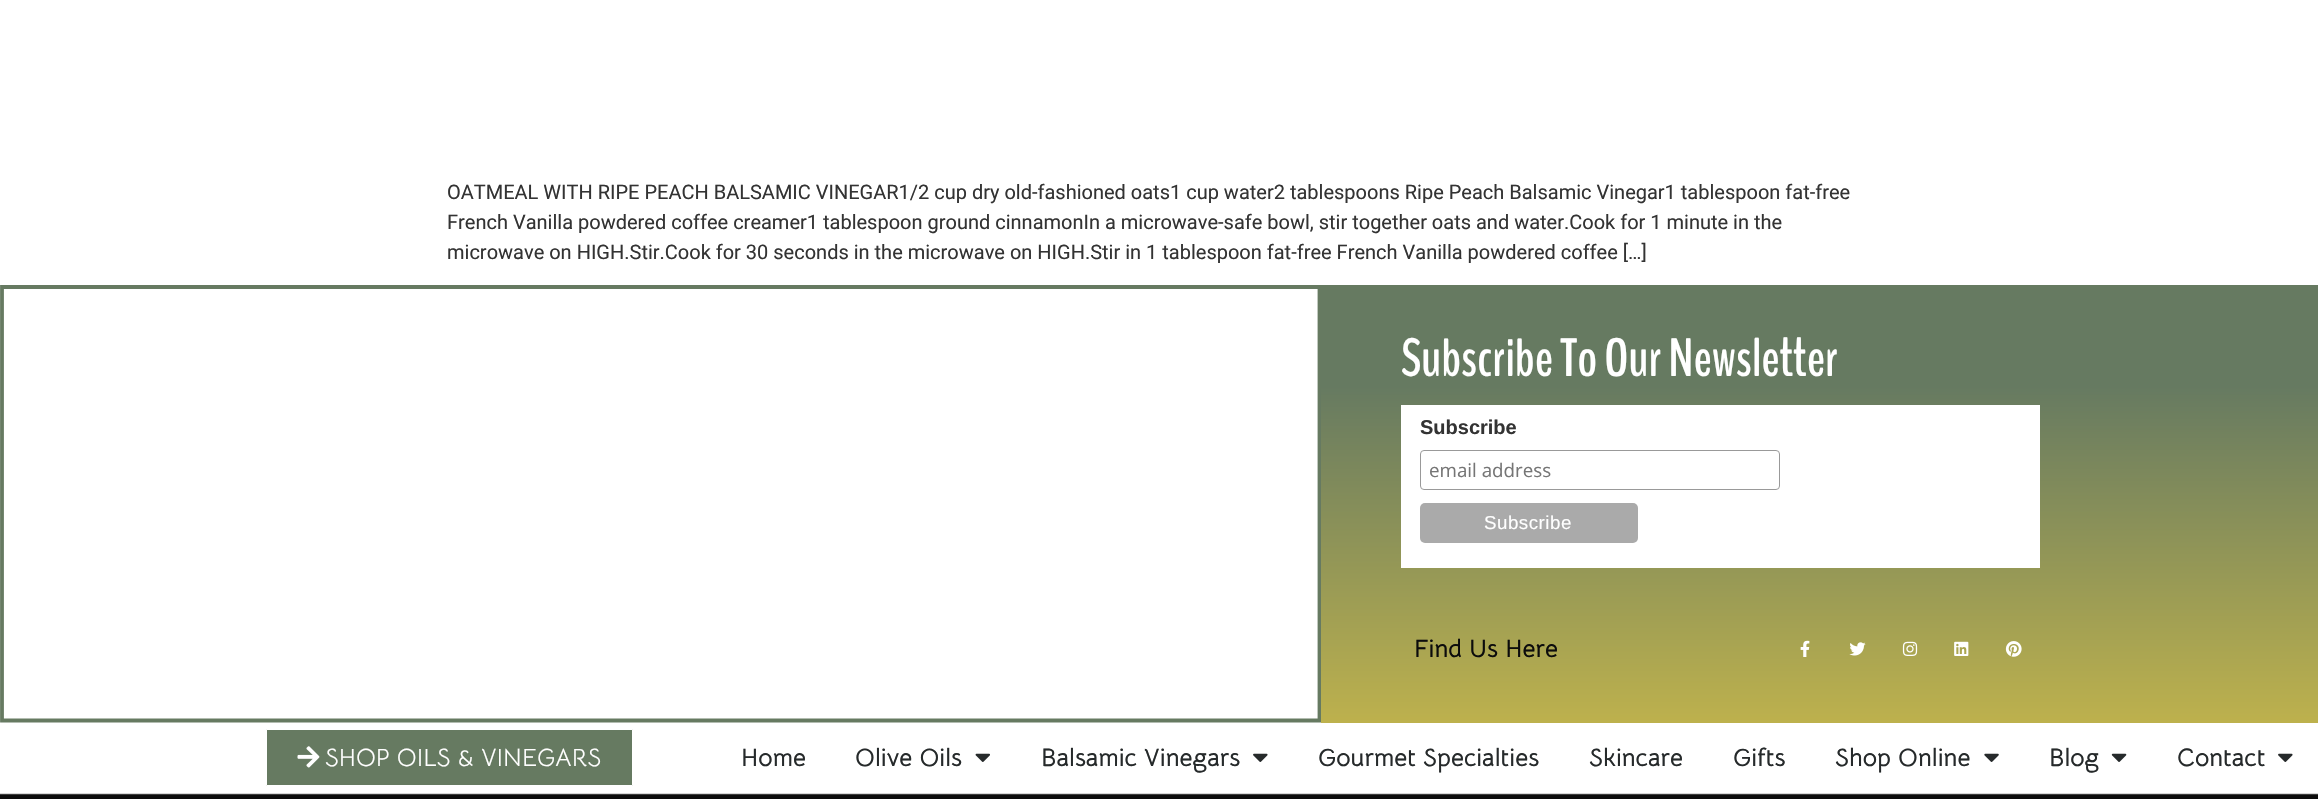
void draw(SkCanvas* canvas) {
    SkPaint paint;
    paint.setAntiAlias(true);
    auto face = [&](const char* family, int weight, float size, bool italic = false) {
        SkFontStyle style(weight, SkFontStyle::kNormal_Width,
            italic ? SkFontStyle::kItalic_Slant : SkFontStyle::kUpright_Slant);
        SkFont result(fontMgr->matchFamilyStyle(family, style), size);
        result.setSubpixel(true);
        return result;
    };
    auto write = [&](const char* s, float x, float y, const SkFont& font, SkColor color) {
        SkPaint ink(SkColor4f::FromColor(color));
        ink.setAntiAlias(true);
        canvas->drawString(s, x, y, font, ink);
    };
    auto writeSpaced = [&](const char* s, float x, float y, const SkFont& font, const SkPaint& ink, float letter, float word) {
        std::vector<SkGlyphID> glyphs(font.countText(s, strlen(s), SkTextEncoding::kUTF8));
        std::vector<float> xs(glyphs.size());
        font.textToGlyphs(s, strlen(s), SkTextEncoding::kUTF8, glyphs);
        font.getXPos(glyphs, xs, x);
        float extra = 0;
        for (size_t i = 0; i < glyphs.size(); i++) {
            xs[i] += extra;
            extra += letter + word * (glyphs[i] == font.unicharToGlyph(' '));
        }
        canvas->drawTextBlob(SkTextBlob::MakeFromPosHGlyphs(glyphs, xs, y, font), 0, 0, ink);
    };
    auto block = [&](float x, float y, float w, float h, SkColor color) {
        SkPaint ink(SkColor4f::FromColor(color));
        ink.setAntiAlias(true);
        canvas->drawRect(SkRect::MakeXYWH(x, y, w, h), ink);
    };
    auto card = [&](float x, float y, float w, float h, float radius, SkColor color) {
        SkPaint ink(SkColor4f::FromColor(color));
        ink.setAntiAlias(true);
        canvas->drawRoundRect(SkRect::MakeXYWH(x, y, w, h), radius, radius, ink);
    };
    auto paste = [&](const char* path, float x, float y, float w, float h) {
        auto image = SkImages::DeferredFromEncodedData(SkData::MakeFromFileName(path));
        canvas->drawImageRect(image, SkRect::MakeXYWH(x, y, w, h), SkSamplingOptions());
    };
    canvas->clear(SK_ColorWHITE);
    auto kFont1 = face("Roboto", 400, 20);
    write("OATMEAL WITH RIPE PEACH BALSAMIC VINEGAR1/2 cup dry old-fashioned oats1 cup water2 tablespoons Ripe Peach Balsamic Vinegar1 tablespoon fat-free", 447, 199, kFont1, SkColorSetRGB(51, 51, 51));
    write("French Vanilla powdered coffee creamer1 tablespoon ground cinnamonIn a microwave-safe bowl, stir together oats and water.Cook for 1 minute in the", 447, 229, kFont1, SkColorSetRGB(51, 51, 51));
    write("microwave on HIGH.Stir.Cook for 30 seconds in the microwave on HIGH.Stir in 1 tablespoon fat-free French Vanilla powdered coffee […]", 447, 259, kFont1, SkColorSetRGB(51, 51, 51));
    paint.setStyle(SkPaint::kStroke_Style);
    paint.setStrokeWidth(3.8f);
    paint.setColor(SkColorSetRGB(102, 122, 97));
    canvas->drawPath(SkPathBuilder().moveTo(2, 287).lineTo(1319.5f, 287).lineTo(1319.5f, 720.5f).lineTo(2, 720.5f).close().detach(), paint);
    paint.setStyle(SkPaint::kFill_Style);
    {
        const SkColor colors[] = {SkColorSetRGB(102, 122, 97), SkColorSetRGB(189, 177, 77)};
        const float stops[] = {0.23f, 1};
        const SkPoint ends[] = {{1820, 285}, {1820, 723}};
        paint.setShader(SkGradientShader::MakeLinear(ends, colors, stops, 2, SkTileMode::kClamp));
        paint.setAlpha(255);
    }
    canvas->drawRect(SkRect::MakeXYWH(1321, 285, 997, 438), paint);
    auto kFont2 = face("BenchNine", 700, 53.75f);
    write("Subscribe To Our Newsletter", 1401, 376, kFont2, SK_ColorWHITE);
    block(1401, 405, 639, 163, SK_ColorWHITE);
    auto kFont3 = face("Liberation Sans", 700, 20);
    write("Subscribe", 1420, 434, kFont3, SkColorSetRGB(51, 51, 51));
    paint.setStyle(SkPaint::kStroke_Style);
    paint.setStrokeWidth(1);
    paint.setShader(nullptr);
    paint.setColor(SkColorSetRGB(153, 153, 153));
    canvas->drawRoundRect(SkRect::MakeXYWH(1420.5f, 450.5f, 359, 39), 3.5f, 3.5f, paint);
    auto kFont4 = face("Open Sans", 400, 18.75f);
    write("email address", 1429, 477, kFont4, SkColorSetRGB(117, 117, 117));
    card(1420, 503, 218, 40, 5, SkColorSetRGB(170, 170, 170));
    auto kFont5 = face("Liberation Sans", 400, 18.75f);
    paint.setStyle(SkPaint::kFill_Style);
    paint.setColor(SK_ColorWHITE);
    writeSpaced("Subscribe", 1484, 529, kFont5, paint, 0.5f, 0);
    auto kFont6 = face("Bellota Text", 700, 25);
    write("Find Us Here", 1414, 657, kFont6, SkColorSetRGB(12, 12, 12));
    paste("pic1.png", 1800, 640, 10, 17);
    paste("pic2.png", 1849, 642, 17, 14);
    paste("pic3.png", 1902, 641, 16, 15);
    paste("pic4.png", 1954, 641, 15, 15);
    paste("pic5.png", 2005, 641, 17, 16);
    block(0, 793, 2318, 1, SkColorSetRGB(216, 216, 216));
    paint.setColor(SkColorSetRGB(102, 122, 97));
    canvas->drawRoundRect(SkRect::MakeXYWH(266.5f, 729.5f, 366, 56), 0.5f, 0.5f, paint);
    paint.setStyle(SkPaint::kStroke_Style);
    paint.setColor(SK_ColorWHITE);
    canvas->drawRoundRect(SkRect::MakeXYWH(266.5f, 729.5f, 366, 56), 0.5f, 0.5f, paint);
    paste("pic6.png", 297, 746, 23, 22);
    auto kFont7 = face("Bellota Text", 400, 25);
    write("SHOP OILS & VINEGARS", 325, 766, kFont7, SK_ColorWHITE);
    write("Home", 741, 766, kFont6, SkColorSetRGB(38, 42, 43));
    write("Olive Oils", 855, 766, kFont6, SkColorSetRGB(38, 42, 43));
    paste("pic7.png", 975, 753, 15, 9);
    write("Balsamic Vinegars", 1041, 766, kFont6, SkColorSetRGB(38, 42, 43));
    paste("pic8.png", 1253, 753, 15, 9);
    write("Gourmet Specialties", 1318, 766, kFont6, SkColorSetRGB(38, 42, 43));
    write("Skincare", 1589, 766, kFont6, SkColorSetRGB(38, 42, 43));
    write("Gifts", 1733, 766, kFont6, SkColorSetRGB(38, 42, 43));
    write("Shop Online", 1835, 766, kFont6, SkColorSetRGB(38, 42, 43));
    paste("pic9.png", 1984, 753, 15, 9);
    write("Blog", 2049, 766, kFont6, SkColorSetRGB(38, 42, 43));
    paste("pic10.png", 2111, 753, 16, 9);
    write("Contact", 2177, 766, kFont6, SkColorSetRGB(38, 42, 43));
    paste("pic8.png", 2278, 753, 15, 9);
    block(0, 795, 2318, 4, SkColorSetRGB(12, 12, 12));
    block(0, 794, 2318, 1, SkColorSetRGB(61, 61, 61));
}
